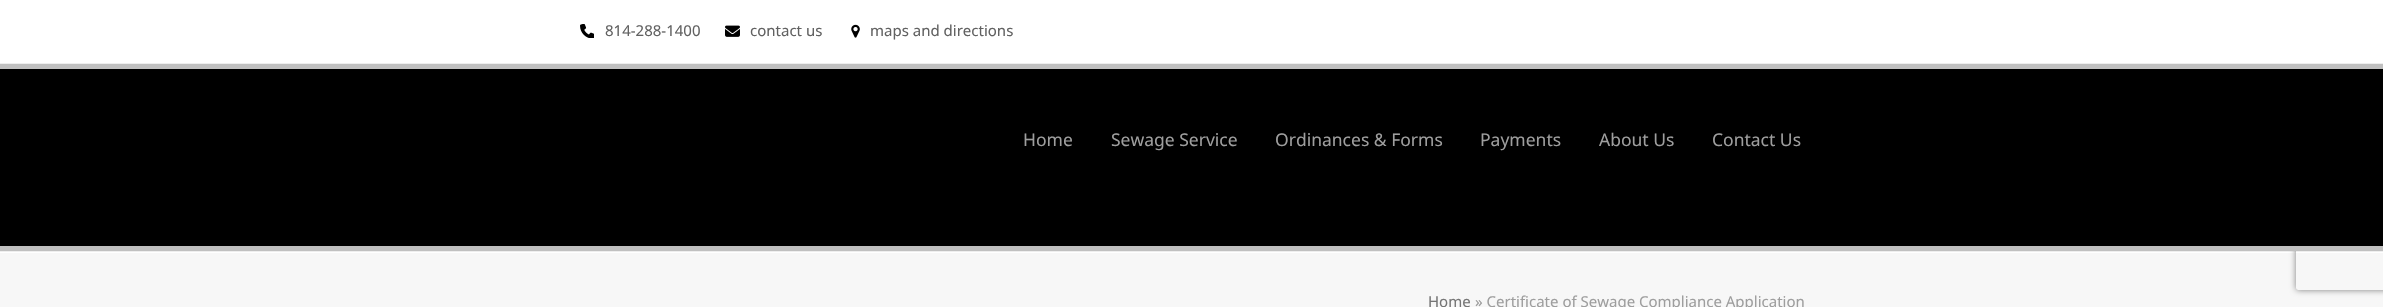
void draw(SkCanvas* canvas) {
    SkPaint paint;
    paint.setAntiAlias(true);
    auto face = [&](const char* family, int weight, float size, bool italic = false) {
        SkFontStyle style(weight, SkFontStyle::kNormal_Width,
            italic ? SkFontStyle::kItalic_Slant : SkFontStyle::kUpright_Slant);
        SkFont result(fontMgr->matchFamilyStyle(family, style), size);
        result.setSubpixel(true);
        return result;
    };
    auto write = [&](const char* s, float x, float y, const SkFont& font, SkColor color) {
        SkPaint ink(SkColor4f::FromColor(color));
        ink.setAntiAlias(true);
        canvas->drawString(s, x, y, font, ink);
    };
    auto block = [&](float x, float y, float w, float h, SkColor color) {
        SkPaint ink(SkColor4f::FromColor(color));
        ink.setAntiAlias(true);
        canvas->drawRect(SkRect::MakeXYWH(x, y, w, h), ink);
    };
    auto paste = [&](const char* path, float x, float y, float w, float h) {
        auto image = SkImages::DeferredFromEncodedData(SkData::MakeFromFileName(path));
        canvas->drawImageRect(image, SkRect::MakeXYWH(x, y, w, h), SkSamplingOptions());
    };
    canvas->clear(SK_ColorWHITE);
    block(0, 63, 2383, 1, SkColorSetRGB(238, 238, 238));
    paste("pic1.png", 580, 24, 14, 14);
    auto kFont1 = face("Noto Sans", 400, 15);
    write("814-288-1400", 605, 36, kFont1, SkColorSetRGB(97, 97, 97));
    paste("pic2.png", 725, 25, 15, 12);
    write("contact us", 750, 36, kFont1, SkColorSetRGB(97, 97, 97));
    paste("pic3.png", 851, 24, 9, 14);
    write("maps and directions", 870, 36, kFont1, SkColorSetRGB(97, 97, 97));
    block(0, 253, 2383, 54, SkColorSetRGB(247, 247, 247));
    block(0, 251, 2383, 1, SkColorSetRGB(238, 238, 238));
    canvas->save();
    canvas->clipPath(SkPathBuilder(SkPathFillType::kEvenOdd).moveTo(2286, 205).lineTo(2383, 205).lineTo(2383, 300).lineTo(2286, 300).close().moveTo(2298.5f, 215).lineTo(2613.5f, 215).cubicTo(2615, 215, 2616, 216, 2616, 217.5f).lineTo(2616, 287.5f).cubicTo(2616, 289, 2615, 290, 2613.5f, 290).lineTo(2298.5f, 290).cubicTo(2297, 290, 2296, 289, 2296, 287.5f).lineTo(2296, 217.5f).cubicTo(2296, 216, 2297, 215, 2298.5f, 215).close().detach(), true);
    paint.setColor(SkColorSetRGB(128, 128, 128));
    paint.setMaskFilter(SkMaskFilter::MakeBlur(kNormal_SkBlurStyle, 3));
    canvas->drawRoundRect(SkRect::MakeXYWH(2296, 215, 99, 75), 2.5f, 2.5f, paint);
    paint.setMaskFilter(nullptr);
    canvas->restore();
    block(0, 69, 2383, 177, SK_ColorBLACK);
    block(0, 64, 2383, 5, SkColorSetRGB(192, 192, 192));
    block(0, 246, 2383, 5, SkColorSetRGB(192, 192, 192));
    auto kFont2 = face("Noto Sans", 400, 17.5f);
    write("Home", 1023, 146, kFont2, SkColorSetRGB(158, 158, 158));
    write("Sewage Service", 1111, 146, kFont2, SkColorSetRGB(158, 158, 158));
    write("Ordinances & Forms", 1275, 146, kFont2, SkColorSetRGB(158, 158, 158));
    write("Payments", 1480, 146, kFont2, SkColorSetRGB(158, 158, 158));
    write("About Us", 1599, 146, kFont2, SkColorSetRGB(158, 158, 158));
    write("Contact Us", 1712, 146, kFont2, SkColorSetRGB(158, 158, 158));
    write("Home", 1428, 307, kFont1, SkColorSetRGB(117, 117, 117));
    write("» Certificate of Sewage Compliance Application", 1475, 307, kFont1, SkColorSetRGB(158, 158, 158));
}
